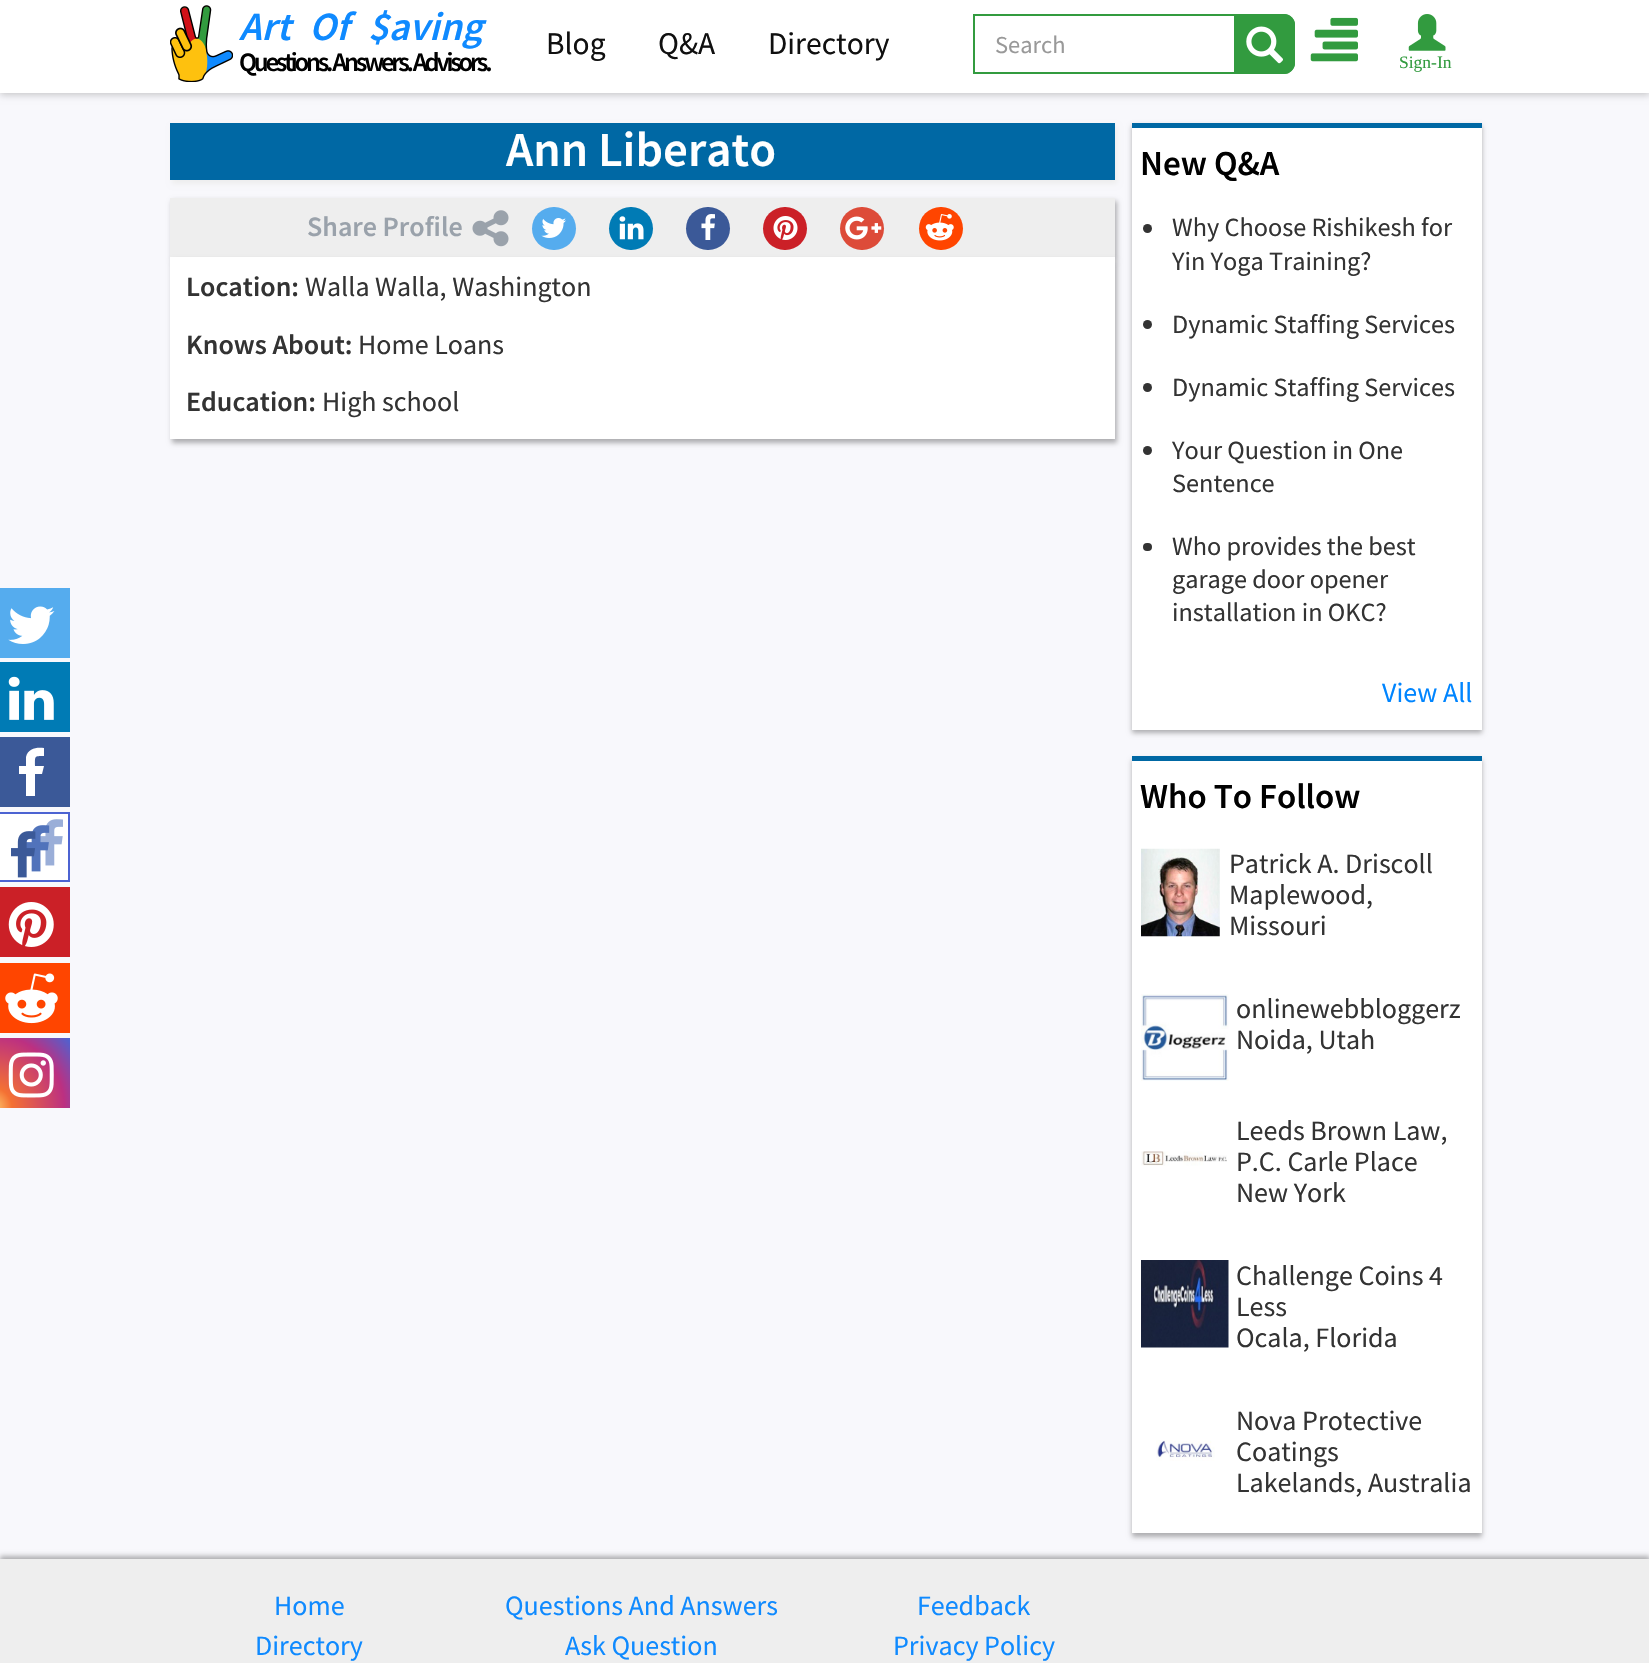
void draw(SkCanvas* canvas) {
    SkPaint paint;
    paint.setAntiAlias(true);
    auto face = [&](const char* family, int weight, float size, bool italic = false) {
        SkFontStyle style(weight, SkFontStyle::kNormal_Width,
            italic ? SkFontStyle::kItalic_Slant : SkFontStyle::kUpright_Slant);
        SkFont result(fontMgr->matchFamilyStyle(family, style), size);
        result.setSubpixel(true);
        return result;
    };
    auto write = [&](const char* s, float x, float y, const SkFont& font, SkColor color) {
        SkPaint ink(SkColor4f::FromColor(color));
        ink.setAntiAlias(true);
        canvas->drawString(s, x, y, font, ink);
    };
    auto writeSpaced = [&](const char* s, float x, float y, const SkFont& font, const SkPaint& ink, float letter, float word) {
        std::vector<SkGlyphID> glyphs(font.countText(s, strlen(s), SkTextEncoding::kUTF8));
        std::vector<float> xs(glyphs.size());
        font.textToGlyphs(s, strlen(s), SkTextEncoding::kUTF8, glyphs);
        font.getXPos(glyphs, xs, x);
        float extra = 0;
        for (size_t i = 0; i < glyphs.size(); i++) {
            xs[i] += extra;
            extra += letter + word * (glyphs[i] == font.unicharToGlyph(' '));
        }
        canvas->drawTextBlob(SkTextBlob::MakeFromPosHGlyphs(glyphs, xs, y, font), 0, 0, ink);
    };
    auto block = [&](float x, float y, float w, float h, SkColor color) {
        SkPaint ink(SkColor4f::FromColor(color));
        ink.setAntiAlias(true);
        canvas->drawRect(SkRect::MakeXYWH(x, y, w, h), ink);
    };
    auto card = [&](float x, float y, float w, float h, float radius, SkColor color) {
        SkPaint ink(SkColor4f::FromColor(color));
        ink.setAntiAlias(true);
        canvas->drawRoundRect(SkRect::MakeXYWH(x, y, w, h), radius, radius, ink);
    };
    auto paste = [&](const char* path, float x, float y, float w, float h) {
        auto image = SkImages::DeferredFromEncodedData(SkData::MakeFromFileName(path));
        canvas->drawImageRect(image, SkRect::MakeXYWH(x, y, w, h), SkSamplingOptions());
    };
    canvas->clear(SkColorSetRGB(248, 248, 252));
    paint.setColor(SkColorSetARGB(51, 0, 0, 0));
    paint.setMaskFilter(SkMaskFilter::MakeBlur(kNormal_SkBlurStyle, 3.5f));
    canvas->drawRect(SkRect::MakeXYWH(0, 2, 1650, 93), paint);
    paint.setMaskFilter(nullptr);
    block(0, 0, 1649, 93, SK_ColorWHITE);
    paste("pic1.png", 170, 5, 63, 77);
    auto kFont1 = face("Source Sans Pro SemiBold", 600, 40, true);
    write("Art", 239, 40, kFont1, SkColorSetRGB(15, 138, 255));
    write("Of", 309, 40, kFont1, SkColorSetRGB(15, 138, 255));
    write("$aving", 368, 40, kFont1, SkColorSetRGB(15, 138, 255));
    auto kFont2 = face("Source Sans Pro SemiBold", 600, 26.75f);
    paint.setColor(SK_ColorBLACK);
    writeSpaced("Questions. Answers. Advisors.", 239, 71, kFont2, paint, -3.2f, 0);
    auto kFont3 = face("Source Sans Pro", 400, 31.5f);
    write("Blog", 546, 54, kFont3, SkColorSetRGB(16, 16, 16));
    write("Q&A", 658, 54, kFont3, SkColorSetRGB(16, 16, 16));
    write("Directory", 768, 54, kFont3, SkColorSetRGB(16, 16, 16));
    paint.setStyle(SkPaint::kStroke_Style);
    paint.setStrokeWidth(2);
    paint.setColor(SkColorSetRGB(50, 155, 63));
    canvas->drawRect(SkRect::MakeXYWH(974, 15, 261, 58), paint);
    auto kFont4 = face("Source Sans Pro", 400, 24.5f);
    write("Search", 995, 53, kFont4, SkColorSetRGB(153, 153, 153));
    paint.setStyle(SkPaint::kFill_Style);
    canvas->drawPath(SkPathBuilder().moveTo(1236, 14).lineTo(1284, 14).cubicTo(1290, 14, 1295, 19, 1295, 25).lineTo(1295, 63).cubicTo(1295, 69, 1290, 74, 1284, 74).lineTo(1236, 74).close().detach(), paint);
    canvas->drawPath(SkPathBuilder(SkPathFillType::kEvenOdd).moveTo(1236, 14).lineTo(1284, 14).cubicTo(1290, 14, 1295, 19, 1295, 24).lineTo(1295, 63).cubicTo(1295, 69, 1290, 74, 1284, 74).lineTo(1236, 74).close().moveTo(1236, 16).lineTo(1284, 16).cubicTo(1289, 16, 1293, 20, 1293, 24).lineTo(1293, 63).cubicTo(1293, 68, 1289, 72, 1284, 72).lineTo(1236, 72).close().detach(), paint);
    paste("pic2.png", 1246, 26, 37, 38);
    paste("pic3.png", 1310, 17, 48, 45);
    paste("pic4.png", 1408, 14, 38, 37);
    auto kFont5 = face("Liberation Serif", 400, 17.5f);
    write("Sign-In", 1399, 68, kFont5, SkColorSetRGB(50, 155, 63));
    block(0, 588, 70, 70, SkColorSetRGB(85, 172, 238));
    paste("pic5.png", 8, 606, 47, 38);
    block(0, 662, 70, 70, SkColorSetRGB(0, 123, 181));
    paste("pic6.png", 8, 676, 46, 44);
    block(0, 737, 70, 70, SkColorSetRGB(59, 89, 152));
    paint.setColor(SK_ColorWHITE);
    canvas->drawPath(SkPathBuilder().moveTo(44, 748).lineTo(44, 756).cubicTo(34, 756, 35, 756, 35, 766).lineTo(44, 766).lineTo(42, 774).lineTo(35, 774).lineTo(35, 796).lineTo(26, 796).lineTo(26, 774).lineTo(19, 774).lineTo(19, 766).lineTo(26, 766).lineTo(26, 757).cubicTo(28, 748, 37, 747, 44, 748).close().detach(), paint);
    block(0, 814, 68, 66, SK_ColorWHITE);
    paste("pic7.png", 11, 819, 52, 59);
    paint.setStyle(SkPaint::kStroke_Style);
    paint.setColor(SkColorSetRGB(76, 99, 210));
    canvas->drawRect(SkRect::MakeXYWH(-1, 813, 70, 68), paint);
    block(0, 887, 70, 70, SkColorSetRGB(203, 32, 39));
    paste("pic8.png", 8, 902, 46, 45);
    block(0, 963, 70, 70, SkColorSetRGB(255, 69, 0));
    paste("pic9.png", 5, 973, 53, 51);
    paint.setStyle(SkPaint::kFill_Style);
    {
        const SkColor colors[] = {SkColorSetRGB(254, 213, 118), SkColorSetRGB(244, 113, 51), SkColorSetRGB(188, 48, 129), SkColorSetRGB(76, 99, 210)};
        const float stops[] = {0, 0.2f, 0.7f, 1};
        paint.setShader(SkGradientShader::MakeRadial({-9, 1108}, 105, colors, stops, 4, SkTileMode::kClamp));
        paint.setAlpha(255);
    }
    canvas->drawRect(SkRect::MakeXYWH(0, 1038, 70, 70), paint);
    paste("pic10.png", 8, 1052, 46, 46);
    paint.setShader(nullptr);
    paint.setColor(SkColorSetRGB(238, 238, 238));
    paint.setMaskFilter(SkMaskFilter::MakeBlur(kNormal_SkBlurStyle, 2.5f));
    canvas->drawRect(SkRect::MakeXYWH(172, 126, 945, 58), paint);
    paint.setMaskFilter(nullptr);
    block(170, 123, 945, 57, SkColorSetRGB(0, 104, 164));
    auto kFont6 = face("Source Sans Pro SemiBold", 600, 49);
    write("Ann Liberato", 506, 166, kFont6, SK_ColorWHITE);
    paint.setColor(SkColorSetARGB(77, 0, 0, 0));
    paint.setMaskFilter(SkMaskFilter::MakeBlur(kNormal_SkBlurStyle, 2.5f));
    canvas->drawRect(SkRect::MakeXYWH(172, 201, 945, 60), paint);
    paint.setMaskFilter(nullptr);
    block(170, 198, 945, 59, SkColorSetRGB(238, 238, 238));
    auto kFont7 = face("Source Sans Pro SemiBold", 600, 28);
    write("Share Profile", 307, 236, kFont7, SkColorSetRGB(154, 162, 171));
    paste("pic11.png", 472, 210, 37, 37);
    card(532, 207, 44, 43, 21.5f, SkColorSetRGB(85, 172, 238));
    paste("pic12.png", 541, 218, 25, 20);
    card(609, 207, 44, 43, 21.5f, SkColorSetRGB(0, 123, 181));
    paste("pic13.png", 619, 216, 25, 24);
    card(686, 207, 44, 43, 21.5f, SkColorSetRGB(59, 89, 152));
    paste("pic14.png", 701, 214, 14, 26);
    card(763, 207, 44, 43, 21.5f, SkColorSetRGB(203, 32, 39));
    paste("pic15.png", 773, 216, 25, 24);
    card(840, 207, 44, 43, 21.5f, SkColorSetRGB(221, 75, 57));
    paste("pic16.png", 845, 216, 37, 24);
    card(919, 207, 44, 43, 21.5f, SkColorSetRGB(255, 69, 0));
    paste("pic17.png", 925, 214, 29, 27);
    paint.setMaskFilter(SkMaskFilter::MakeBlur(kNormal_SkBlurStyle, 2.5f));
    canvas->drawRect(SkRect::MakeXYWH(172, 261, 945, 182), paint);
    paint.setMaskFilter(nullptr);
    block(170, 257, 945, 182, SK_ColorWHITE);
    write("Location:", 186, 296, kFont7, SkColorSetRGB(51, 51, 51));
    auto kFont8 = face("Source Sans Pro", 400, 28);
    write("Walla Walla, Washington", 305, 296, kFont8, SkColorSetRGB(51, 51, 51));
    write("Knows About:", 186, 354, kFont7, SkColorSetRGB(51, 51, 51));
    write("Home Loans", 358, 354, kFont8, SkColorSetRGB(51, 51, 51));
    write("Education:", 186, 411, kFont7, SkColorSetRGB(51, 51, 51));
    write("High school", 322, 411, kFont8, SkColorSetRGB(51, 51, 51));
    paint.setMaskFilter(SkMaskFilter::MakeBlur(kNormal_SkBlurStyle, 2.5f));
    canvas->drawRect(SkRect::MakeXYWH(1132, 126, 350, 607), paint);
    paint.setMaskFilter(nullptr);
    block(1132, 128, 350, 602, SK_ColorWHITE);
    block(1132, 123, 350, 5, SkColorSetRGB(0, 104, 164));
    auto kFont9 = face("Source Sans Pro SemiBold", 600, 35);
    write("New Q&A", 1140, 175, kFont9, SK_ColorBLACK);
    paint.setColor(SkColorSetRGB(51, 51, 51));
    canvas->drawCircle(1147.5f, 228.5f, 4.5f, paint);
    auto kFont10 = face("Source Sans Pro", 400, 26.25f);
    write("Why Choose Rishikesh for", 1172, 236, kFont10, SkColorSetRGB(51, 51, 51));
    write("Yin Yoga Training?", 1172, 270, kFont10, SkColorSetRGB(51, 51, 51));
    canvas->drawCircle(1147.5f, 324.5f, 4.5f, paint);
    write("Dynamic Staffing Services", 1172, 333, kFont10, SkColorSetRGB(51, 51, 51));
    canvas->drawCircle(1147.5f, 387.5f, 4.5f, paint);
    write("Dynamic Staffing Services", 1172, 396, kFont10, SkColorSetRGB(51, 51, 51));
    canvas->drawCircle(1147.5f, 450.5f, 4.5f, paint);
    write("Your Question in One", 1172, 459, kFont10, SkColorSetRGB(51, 51, 51));
    write("Sentence", 1172, 492, kFont10, SkColorSetRGB(51, 51, 51));
    card(1143, 543, 9, 8, 4, SkColorSetRGB(51, 51, 51));
    write("Who provides the best", 1172, 555, kFont10, SkColorSetRGB(51, 51, 51));
    write("garage door opener", 1172, 588, kFont10, SkColorSetRGB(51, 51, 51));
    write("installation in OKC?", 1172, 621, kFont10, SkColorSetRGB(51, 51, 51));
    write("View All", 1382, 702, kFont8, SkColorSetRGB(0, 133, 255));
    paint.setColor(SkColorSetARGB(77, 0, 0, 0));
    paint.setMaskFilter(SkMaskFilter::MakeBlur(kNormal_SkBlurStyle, 2.5f));
    canvas->drawRect(SkRect::MakeXYWH(1132, 760, 350, 777), paint);
    paint.setMaskFilter(nullptr);
    block(1132, 761, 350, 772, SK_ColorWHITE);
    block(1132, 756, 350, 5, SkColorSetRGB(0, 104, 164));
    write("Who To Follow", 1140, 808, kFont9, SK_ColorBLACK);
    paste("pic18.png", 1141, 848, 79, 89);
    write("Patrick A. Driscoll", 1229, 873, kFont8, SkColorSetRGB(51, 51, 51));
    write("Maplewood,", 1229, 904, kFont8, SkColorSetRGB(51, 51, 51));
    write("Missouri", 1229, 935, kFont8, SkColorSetRGB(51, 51, 51));
    paste("pic19.png", 1141, 994, 88, 87);
    write("onlinewebbloggerz", 1236, 1018, kFont8, SkColorSetRGB(51, 51, 51));
    write("Noida, Utah", 1236, 1049, kFont8, SkColorSetRGB(51, 51, 51));
    paste("pic20.png", 1141, 1151, 86, 15);
    write("Leeds Brown Law,", 1236, 1140, kFont8, SkColorSetRGB(51, 51, 51));
    write("P.C. Carle Place", 1236, 1171, kFont8, SkColorSetRGB(51, 51, 51));
    write("New York", 1236, 1202, kFont8, SkColorSetRGB(51, 51, 51));
    paste("pic21.png", 1141, 1260, 88, 88);
    write("Challenge Coins 4", 1236, 1285, kFont8, SkColorSetRGB(51, 51, 51));
    write("Less", 1236, 1316, kFont8, SkColorSetRGB(51, 51, 51));
    write("Ocala, Florida", 1236, 1347, kFont8, SkColorSetRGB(51, 51, 51));
    paste("pic22.png", 1156, 1440, 59, 21);
    write("Nova Protective", 1236, 1430, kFont8, SkColorSetRGB(51, 51, 51));
    write("Coatings", 1236, 1461, kFont8, SkColorSetRGB(51, 51, 51));
    write("Lakelands, Australia", 1236, 1492, kFont8, SkColorSetRGB(51, 51, 51));
    paint.setMaskFilter(SkMaskFilter::MakeBlur(kNormal_SkBlurStyle, 2.5f));
    canvas->drawRect(SkRect::MakeXYWH(0, 1556, 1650, 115), paint);
    paint.setMaskFilter(nullptr);
    block(0, 1559, 1649, 104, SkColorSetRGB(238, 238, 238));
    write("Home", 274, 1615, kFont8, SkColorSetRGB(15, 138, 255));
    write("Directory", 255, 1655, kFont8, SkColorSetRGB(15, 138, 255));
    write("Questions And Answers", 505, 1615, kFont8, SkColorSetRGB(15, 138, 255));
    write("Ask Question", 565, 1655, kFont8, SkColorSetRGB(15, 138, 255));
    write("Feedback", 917, 1615, kFont8, SkColorSetRGB(15, 138, 255));
    write("Privacy Policy", 893, 1655, kFont8, SkColorSetRGB(15, 138, 255));
}
